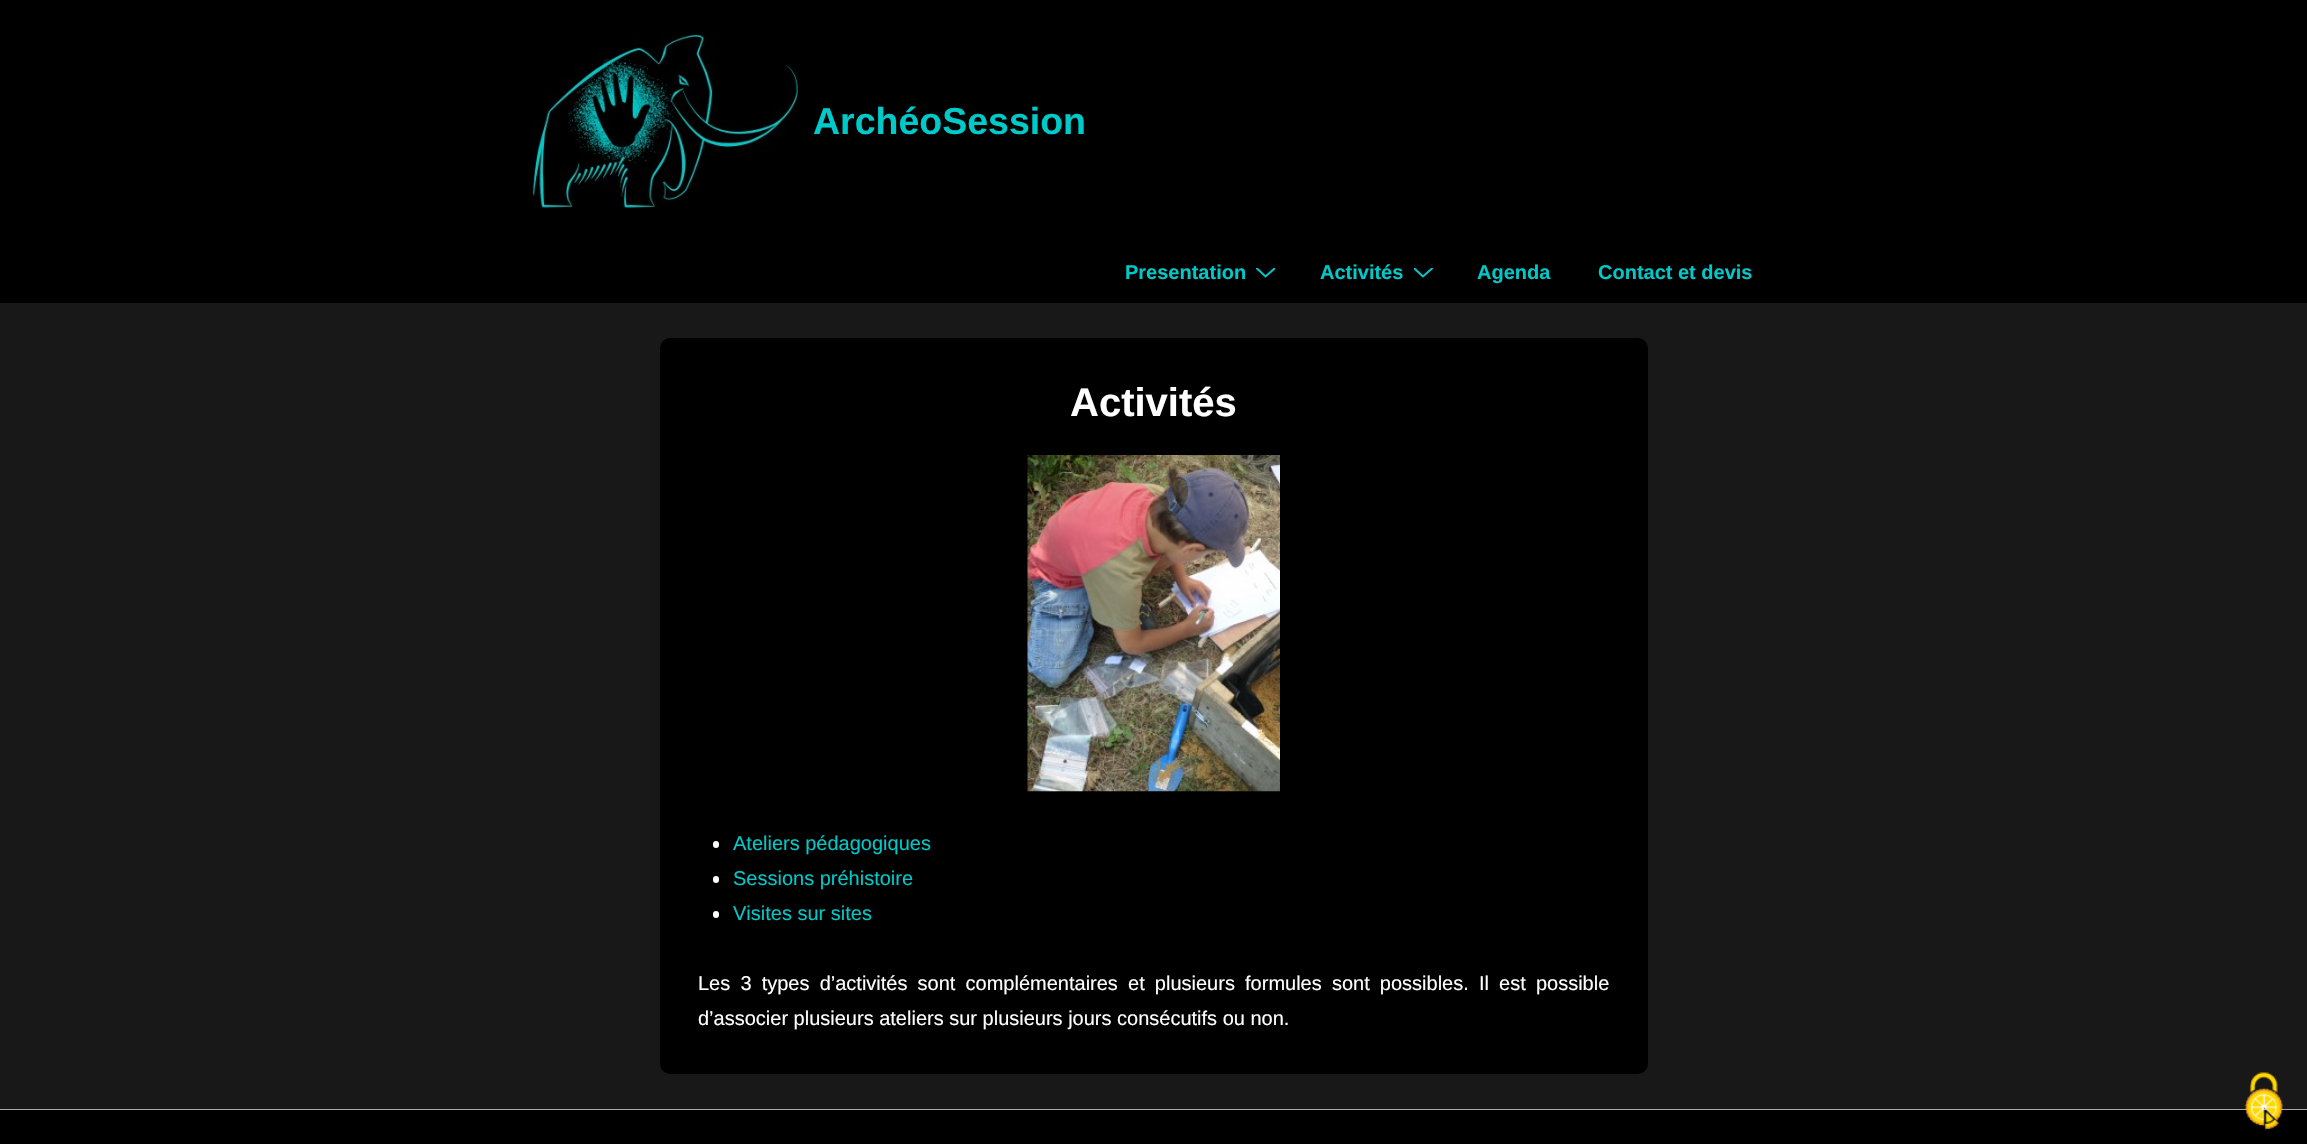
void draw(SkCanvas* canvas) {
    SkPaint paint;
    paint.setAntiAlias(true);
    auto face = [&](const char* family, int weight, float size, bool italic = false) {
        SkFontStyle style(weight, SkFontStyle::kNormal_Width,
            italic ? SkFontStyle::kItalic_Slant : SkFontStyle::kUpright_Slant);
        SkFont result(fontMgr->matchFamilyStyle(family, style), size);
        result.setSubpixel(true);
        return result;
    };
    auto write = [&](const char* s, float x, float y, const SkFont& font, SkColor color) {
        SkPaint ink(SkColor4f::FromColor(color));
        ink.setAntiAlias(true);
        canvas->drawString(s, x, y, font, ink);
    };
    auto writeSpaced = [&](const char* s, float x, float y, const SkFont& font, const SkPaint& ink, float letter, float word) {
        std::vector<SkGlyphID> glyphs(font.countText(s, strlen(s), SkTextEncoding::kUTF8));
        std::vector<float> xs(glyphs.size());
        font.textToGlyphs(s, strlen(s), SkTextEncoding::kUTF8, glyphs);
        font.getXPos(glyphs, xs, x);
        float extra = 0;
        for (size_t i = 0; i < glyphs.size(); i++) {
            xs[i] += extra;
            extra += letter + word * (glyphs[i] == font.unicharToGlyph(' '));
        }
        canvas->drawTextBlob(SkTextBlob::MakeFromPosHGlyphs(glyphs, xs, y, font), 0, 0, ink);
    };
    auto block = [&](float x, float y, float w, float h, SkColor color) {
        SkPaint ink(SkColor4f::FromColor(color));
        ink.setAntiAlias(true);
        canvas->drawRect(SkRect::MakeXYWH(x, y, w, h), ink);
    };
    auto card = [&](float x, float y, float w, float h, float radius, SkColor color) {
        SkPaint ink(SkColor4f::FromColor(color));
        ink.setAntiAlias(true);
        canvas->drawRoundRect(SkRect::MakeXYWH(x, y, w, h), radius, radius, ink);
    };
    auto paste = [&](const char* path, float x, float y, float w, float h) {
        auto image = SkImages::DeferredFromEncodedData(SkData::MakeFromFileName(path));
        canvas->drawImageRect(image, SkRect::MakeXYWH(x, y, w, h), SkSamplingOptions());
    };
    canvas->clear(SkColorSetRGB(24, 24, 24));
    block(0, 0, 2307, 303, SK_ColorBLACK);
    paste("pic1.png", 532, 35, 266, 173);
    auto kFont1 = face("Liberation Sans", 700, 37.5f);
    write("ArchéoSession", 813, 134, kFont1, SkColorSetRGB(0, 201, 201));
    auto kFont2 = face("Liberation Sans", 700, 20);
    write("Presentation", 1125, 279, kFont2, SkColorSetRGB(0, 201, 201));
    canvas->save();
    canvas->clipRect(SkRect::MakeXYWH(1256, 268, 19, 10));
    paint.setStyle(SkPaint::kStroke_Style);
    paint.setStrokeWidth(2);
    paint.setStrokeCap(SkPaint::kRound_Cap);
    paint.setColor(SkColorSetRGB(0, 201, 201));
    canvas->drawPath(SkPathBuilder().moveTo(1257, 268.5f).lineTo(1265.5f, 276.5f).lineTo(1274.5f, 268.5f).detach(), paint);
    canvas->restore();
    write("Activités", 1320, 279, kFont2, SkColorSetRGB(0, 201, 201));
    canvas->save();
    canvas->clipRect(SkRect::MakeXYWH(1414, 268, 19, 10));
    canvas->drawPath(SkPathBuilder().moveTo(1414.5f, 268.5f).lineTo(1423, 276.5f).lineTo(1432, 268.5f).detach(), paint);
    canvas->restore();
    write("Agenda", 1477, 279, kFont2, SkColorSetRGB(0, 201, 201));
    write("Contact et devis", 1598, 279, kFont2, SkColorSetRGB(0, 201, 201));
    card(660, 338, 988, 736, 10, SK_ColorBLACK);
    auto kFont3 = face("Liberation Sans", 700, 40);
    write("Activités", 1070, 416, kFont3, SK_ColorWHITE);
    paste("pic2.png", 1027, 455, 253, 337);
    card(713, 841, 6, 7, 3, SK_ColorWHITE);
    auto kFont4 = face("Liberation Sans", 400, 20);
    write("Ateliers pédagogiques", 733, 850, kFont4, SkColorSetRGB(0, 201, 201));
    card(713, 876, 6, 7, 3, SK_ColorWHITE);
    write("Sessions préhistoire", 733, 885, kFont4, SkColorSetRGB(0, 201, 201));
    card(713, 911, 6, 7, 3, SK_ColorWHITE);
    write("Visites sur sites", 733, 920, kFont4, SkColorSetRGB(0, 201, 201));
    paint.setStyle(SkPaint::kFill_Style);
    paint.setColor(SK_ColorWHITE);
    writeSpaced("Les 3 types d’activités sont complémentaires et plusieurs formules sont possibles. Il est possible", 698, 990, kFont4, paint, 0, 4.6f);
    write("d’associer plusieurs ateliers sur plusieurs jours consécutifs ou non.", 698, 1025, kFont4, SK_ColorWHITE);
    block(0, 1110, 2307, 34, SK_ColorBLACK);
    block(0, 1109, 2307, 1, SkColorSetRGB(170, 170, 170));
    paste("pic3.png", 2244, 1072, 39, 58);
}
